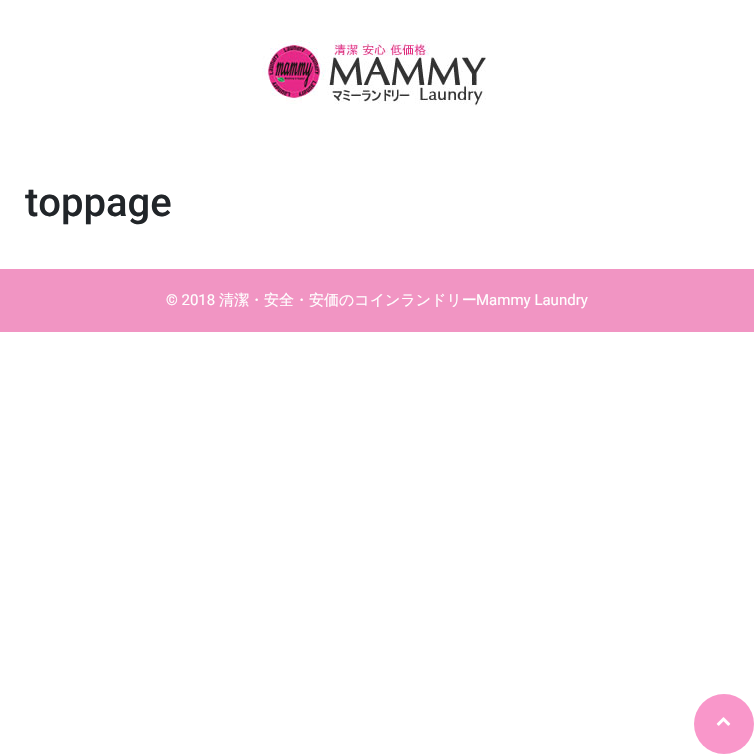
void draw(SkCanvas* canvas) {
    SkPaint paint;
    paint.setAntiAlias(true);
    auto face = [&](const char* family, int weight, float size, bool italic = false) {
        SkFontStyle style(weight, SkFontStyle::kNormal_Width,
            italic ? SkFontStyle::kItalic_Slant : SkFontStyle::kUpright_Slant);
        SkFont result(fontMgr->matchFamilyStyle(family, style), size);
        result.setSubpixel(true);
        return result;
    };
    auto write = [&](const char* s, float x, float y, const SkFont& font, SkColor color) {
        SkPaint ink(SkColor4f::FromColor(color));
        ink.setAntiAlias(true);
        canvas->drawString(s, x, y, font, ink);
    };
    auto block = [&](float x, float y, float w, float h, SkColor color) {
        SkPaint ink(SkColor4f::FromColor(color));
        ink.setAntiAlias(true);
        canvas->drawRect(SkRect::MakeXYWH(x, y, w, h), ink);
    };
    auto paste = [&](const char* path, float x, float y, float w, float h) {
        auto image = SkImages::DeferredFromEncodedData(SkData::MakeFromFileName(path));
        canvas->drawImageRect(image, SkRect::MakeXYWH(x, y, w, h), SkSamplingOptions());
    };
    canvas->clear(SK_ColorWHITE);
    paste("pic1.png", 262, 40, 224, 67);
    auto kFont1 = face("Roboto", 500, 40);
    write("toppage", 25, 216, kFont1, SkColorSetRGB(33, 37, 41));
    block(0, 269, 754, 63, SkColorSetRGB(241, 149, 195));
    auto kFont2 = face("Roboto", 400, 15);
    write("© 2018", 166, 305, kFont2, SK_ColorWHITE);
    auto kFont3 = face("WenQuanYi Zen Hei", 500, 15);
    write("清潔・安全・安価のコインランドリー", 219, 305, kFont3, SK_ColorWHITE);
    write("Mammy Laundry", 476, 305, kFont2, SK_ColorWHITE);
    paint.setColor(SkColorSetRGB(249, 151, 202));
    canvas->drawCircle(724, 724, 30, paint);
    paste("pic2.png", 716, 717, 15, 9);
}
